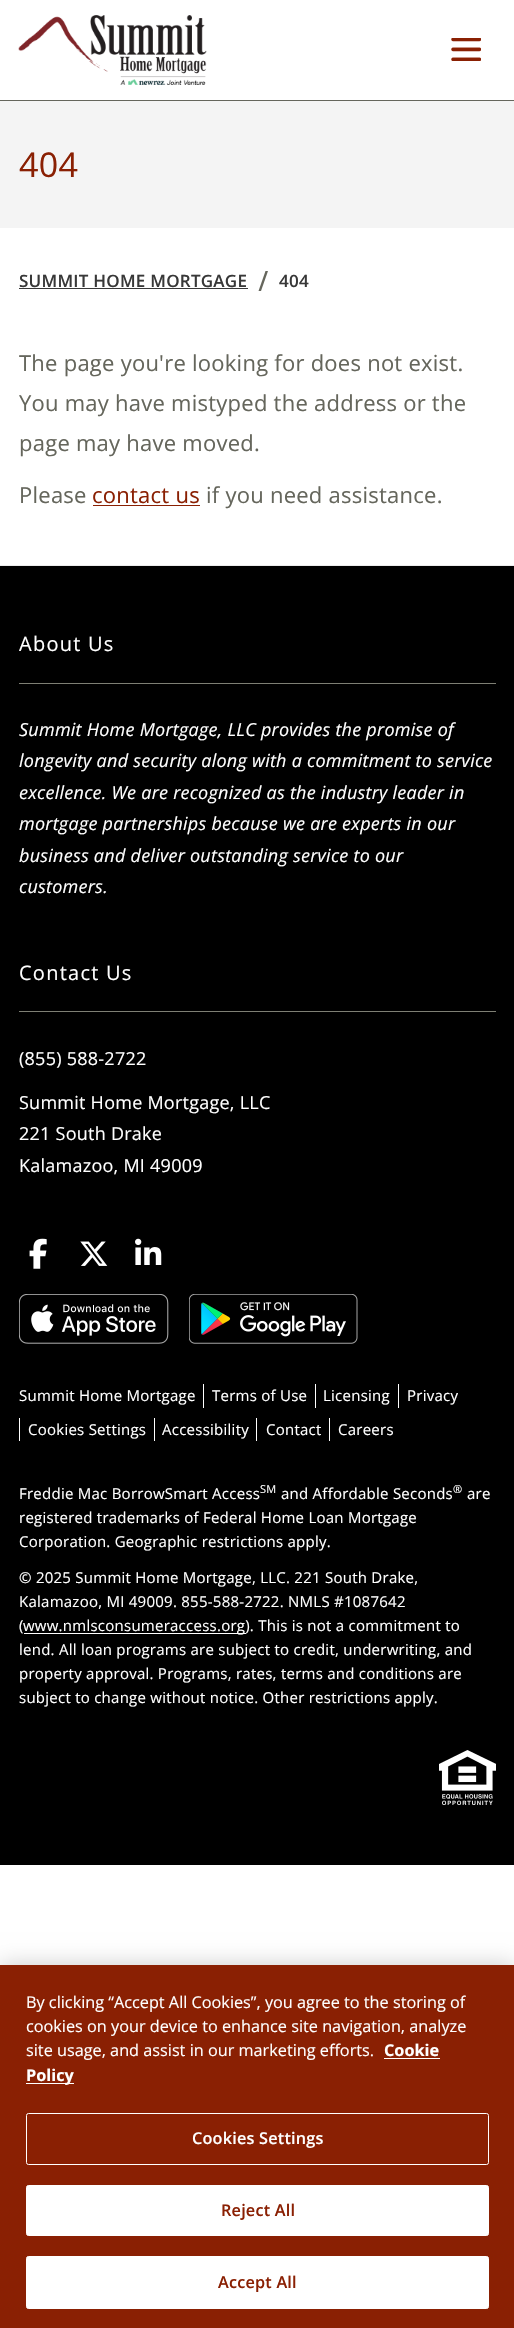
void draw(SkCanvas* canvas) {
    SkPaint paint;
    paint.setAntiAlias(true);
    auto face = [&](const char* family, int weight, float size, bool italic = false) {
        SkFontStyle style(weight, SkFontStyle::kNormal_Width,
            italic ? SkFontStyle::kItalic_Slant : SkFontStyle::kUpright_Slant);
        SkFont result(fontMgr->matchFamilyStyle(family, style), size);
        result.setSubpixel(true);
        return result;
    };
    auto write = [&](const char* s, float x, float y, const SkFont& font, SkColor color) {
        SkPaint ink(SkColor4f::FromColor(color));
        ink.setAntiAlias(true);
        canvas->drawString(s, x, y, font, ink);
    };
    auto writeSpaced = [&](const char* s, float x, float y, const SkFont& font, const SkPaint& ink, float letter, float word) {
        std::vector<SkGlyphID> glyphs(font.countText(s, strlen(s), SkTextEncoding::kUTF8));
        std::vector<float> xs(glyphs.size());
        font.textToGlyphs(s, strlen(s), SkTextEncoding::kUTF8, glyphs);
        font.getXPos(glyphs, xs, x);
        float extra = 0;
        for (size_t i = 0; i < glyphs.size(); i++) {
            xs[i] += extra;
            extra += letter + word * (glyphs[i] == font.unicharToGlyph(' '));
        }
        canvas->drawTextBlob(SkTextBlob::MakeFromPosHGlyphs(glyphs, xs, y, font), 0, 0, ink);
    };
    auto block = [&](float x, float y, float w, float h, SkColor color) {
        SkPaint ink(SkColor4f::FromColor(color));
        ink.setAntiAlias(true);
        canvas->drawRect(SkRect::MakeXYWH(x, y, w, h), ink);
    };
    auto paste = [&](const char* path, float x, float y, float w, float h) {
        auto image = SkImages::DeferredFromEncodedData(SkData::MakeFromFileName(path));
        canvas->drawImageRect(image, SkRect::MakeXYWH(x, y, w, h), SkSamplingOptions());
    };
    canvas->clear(SK_ColorWHITE);
    block(0, 100, 514, 1, SkColorSetRGB(101, 102, 92));
    paste("pic1.png", 18, 15, 189, 70);
    paste("pic2.png", 451, 38, 30, 23);
    block(0, 101, 514, 127, SkColorSetRGB(244, 244, 244));
    auto kFont1 = face("Open Sans", 400, 34);
    paint.setColor(SkColorSetRGB(138, 32, 3));
    writeSpaced("404", 19, 177, kFont1, paint, 0.25f, 0);
    auto kFont2 = face("Open Sans", 600, 17);
    paint.setColor(SkColorSetRGB(56, 56, 56));
    writeSpaced("SUMMIT HOME MORTGAGE", 19, 287, kFont2, paint, 0.25f, 0);
    block(19, 288, 229, 1, SkColorSetRGB(56, 56, 56));
    paint.setColor(SkColorSetRGB(101, 102, 92));
    canvas->drawPath(SkPathBuilder().moveTo(265.5f, 271).lineTo(268, 271).lineTo(261, 291).lineTo(258.5f, 291).close().detach(), paint);
    paint.setColor(SkColorSetRGB(56, 56, 56));
    writeSpaced("404", 279, 287, kFont2, paint, 0.25f, 0);
    auto kFont3 = face("Open Sans", 400, 22);
    paint.setColor(SkColorSetRGB(101, 102, 92));
    writeSpaced("The page you're looking for does not exist.", 19, 371, kFont3, paint, 0.25f, 0);
    writeSpaced("You may have mistyped the address or the", 19, 411, kFont3, paint, 0.25f, 0);
    writeSpaced("page may have moved.", 19, 451, kFont3, paint, 0.25f, 0);
    writeSpaced("Please", 19, 503, kFont3, paint, 0.25f, 0);
    paint.setColor(SkColorSetRGB(138, 32, 3));
    writeSpaced("contact us", 92, 503, kFont3, paint, 0.25f, 0);
    block(93, 505, 107, 1, SkColorSetRGB(138, 32, 3));
    paint.setColor(SkColorSetRGB(101, 102, 92));
    writeSpaced("if you need assistance.", 206, 503, kFont3, paint, 0.25f, 0);
    block(0, 566, 514, 1299, SK_ColorBLACK);
    block(0, 565, 514, 1, SkColorSetRGB(236, 236, 236));
    block(19, 683, 477, 1, SkColorSetRGB(126, 127, 116));
    auto kFont4 = face("Open Sans", 400, 20);
    paint.setColor(SK_ColorWHITE);
    writeSpaced("About Us", 19, 651, kFont4, paint, 1.25f, 0);
    auto kFont5 = face("Open Sans", 400, 18, true);
    writeSpaced("Summit Home Mortgage, LLC provides the promise of", 19, 736, kFont5, paint, 0.25f, 0);
    writeSpaced("longevity and security along with a commitment to service", 19, 767, kFont5, paint, 0.25f, 0);
    writeSpaced("excellence. We are recognized as the industry leader in", 19, 799, kFont5, paint, 0.25f, 0);
    writeSpaced("mortgage partnerships because we are experts in our", 19, 830, kFont5, paint, 0.25f, 0);
    writeSpaced("business and deliver outstanding service to our", 19, 862, kFont5, paint, 0.25f, 0);
    writeSpaced("customers.", 19, 893, kFont5, paint, 0.25f, 0);
    block(19, 1011, 477, 1, SkColorSetRGB(126, 127, 116));
    writeSpaced("Contact Us", 19, 980, kFont4, paint, 1.25f, 0);
    auto kFont6 = face("Open Sans", 400, 18);
    writeSpaced("(855) 588-2722", 19, 1065, kFont6, paint, 0.25f, 0);
    writeSpaced("Summit Home Mortgage, LLC", 19, 1109, kFont6, paint, 0.25f, 0);
    writeSpaced("221 South Drake", 19, 1140, kFont6, paint, 0.25f, 0);
    writeSpaced("Kalamazoo, MI 49009", 19, 1172, kFont6, paint, 0.25f, 0);
    paste("pic3.png", 29, 1238, 18, 31);
    paste("pic4.png", 80, 1241, 28, 25);
    paste("pic5.png", 135, 1238, 27, 27);
    paste("pic6.png", 19, 1294, 150, 50);
    paste("pic7.png", 189, 1294, 169, 50);
    auto kFont7 = face("Open Sans", 400, 15);
    writeSpaced("Summit Home Mortgage", 19, 1401, kFont7, paint, 0.25f, 0);
    block(203, 1384, 1, 24, SK_ColorWHITE);
    writeSpaced("Terms of Use", 212, 1401, kFont7, paint, 0.25f, 0);
    block(315, 1384, 1, 24, SK_ColorWHITE);
    writeSpaced("Licensing", 323, 1401, kFont7, paint, 0.25f, 0);
    block(398, 1384, 1, 24, SK_ColorWHITE);
    writeSpaced("Privacy", 407, 1401, kFont7, paint, 0.25f, 0);
    block(19, 1418, 1, 23, SK_ColorWHITE);
    writeSpaced("Cookies Settings", 28, 1435, kFont7, paint, 0.25f, 0);
    block(154, 1418, 1, 23, SK_ColorWHITE);
    writeSpaced("Accessibility", 162, 1435, kFont7, paint, 0.25f, 0);
    block(256, 1418, 1, 23, SK_ColorWHITE);
    writeSpaced("Contact", 266, 1435, kFont7, paint, 0.25f, 0);
    block(329, 1418, 1, 23, SK_ColorWHITE);
    writeSpaced("Careers", 338, 1435, kFont7, paint, 0.25f, 0);
    writeSpaced("Freddie Mac BorrowSmart Access", 19, 1499, kFont7, paint, 0.25f, 0);
    auto kFont8 = face("Open Sans", 400, 11);
    writeSpaced("SM", 260, 1493, kFont8, paint, 0.25f, 0);
    writeSpaced("and Affordable Seconds", 281, 1499, kFont7, paint, 0.25f, 0);
    writeSpaced("®", 453, 1493, kFont8, paint, 0.25f, 0);
    writeSpaced("are", 467, 1499, kFont7, paint, 0.25f, 0);
    writeSpaced("registered trademarks of Federal Home Loan Mortgage", 19, 1523, kFont7, paint, 0.25f, 0);
    writeSpaced("Corporation. Geographic restrictions apply.", 19, 1547, kFont7, paint, 0.25f, 0);
    writeSpaced("© 2025 Summit Home Mortgage, LLC. 221 South Drake,", 19, 1583, kFont7, paint, 0.25f, 0);
    writeSpaced("Kalamazoo, MI 49009. 855-588-2722. NMLS #1087642", 19, 1607, kFont7, paint, 0.25f, 0);
    writeSpaced("(", 19, 1631, kFont7, paint, 0.25f, 0);
    block(24, 1633, 222, 1, SK_ColorWHITE);
    writeSpaced("www.nmlsconsumeraccess.org). This is not a commitment to", 23, 1631, kFont7, paint, 0.25f, 0);
    writeSpaced("lend. All loan programs are subject to credit, underwriting, and", 19, 1655, kFont7, paint, 0.25f, 0);
    writeSpaced("property approval. Programs, rates, terms and conditions are", 19, 1679, kFont7, paint, 0.25f, 0);
    writeSpaced("subject to change without notice. Other restrictions apply.", 19, 1703, kFont7, paint, 0.25f, 0);
    paste("pic8.png", 439, 1750, 57, 55);
    paint.setColor(SkColorSetARGB(51, 0, 0, 0));
    paint.setMaskFilter(SkMaskFilter::MakeBlur(kNormal_SkBlurStyle, 11));
    canvas->drawRect(SkRect::MakeXYWH(0, 1965, 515, 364), paint);
    paint.setMaskFilter(nullptr);
    block(0, 1965, 514, 363, SkColorSetRGB(138, 32, 3));
    auto kFont9 = face("Open Sans", 400, 16.25f);
    write("By clicking “Accept All Cookies”, you agree to the storing of", 26, 2008, kFont9, SK_ColorWHITE);
    write("cookies on your device to enhance site navigation, analyze", 26, 2032, kFont9, SK_ColorWHITE);
    write("site usage, and assist in our marketing efforts.", 26, 2056, kFont9, SK_ColorWHITE);
    auto kFont10 = face("Open Sans", 700, 16.25f);
    write("Cookie", 384, 2056, kFont10, SK_ColorWHITE);
    block(384, 2058, 56, 1, SK_ColorWHITE);
    block(26, 2083, 48, 1, SK_ColorWHITE);
    write("Policy", 26, 2081, kFont10, SK_ColorWHITE);
    paint.setStyle(SkPaint::kStroke_Style);
    paint.setStrokeWidth(1);
    paint.setColor(SK_ColorWHITE);
    canvas->drawRoundRect(SkRect::MakeXYWH(26.5f, 2113.5f, 462, 51), 2, 2, paint);
    auto kFont11 = face("Open Sans", 600, 16.25f);
    paint.setStyle(SkPaint::kFill_Style);
    writeSpaced("Cookies Settings", 192, 2144, kFont11, paint, 0.2f, 0);
    canvas->drawRoundRect(SkRect::MakeXYWH(26.5f, 2185.5f, 462, 50), 2, 2, paint);
    paint.setStyle(SkPaint::kStroke_Style);
    canvas->drawRoundRect(SkRect::MakeXYWH(26.5f, 2185.5f, 462, 50), 2, 2, paint);
    paint.setStyle(SkPaint::kFill_Style);
    paint.setColor(SkColorSetRGB(138, 32, 3));
    writeSpaced("Reject All", 221, 2216, kFont11, paint, 0.2f, 0);
    paint.setColor(SK_ColorWHITE);
    canvas->drawRoundRect(SkRect::MakeXYWH(26.5f, 2256.5f, 462, 52), 2, 2, paint);
    paint.setStyle(SkPaint::kStroke_Style);
    canvas->drawRoundRect(SkRect::MakeXYWH(26.5f, 2256.5f, 462, 52), 2, 2, paint);
    paint.setStyle(SkPaint::kFill_Style);
    paint.setColor(SkColorSetRGB(138, 32, 3));
    writeSpaced("Accept All", 218, 2288, kFont11, paint, 0.2f, 0);
}
